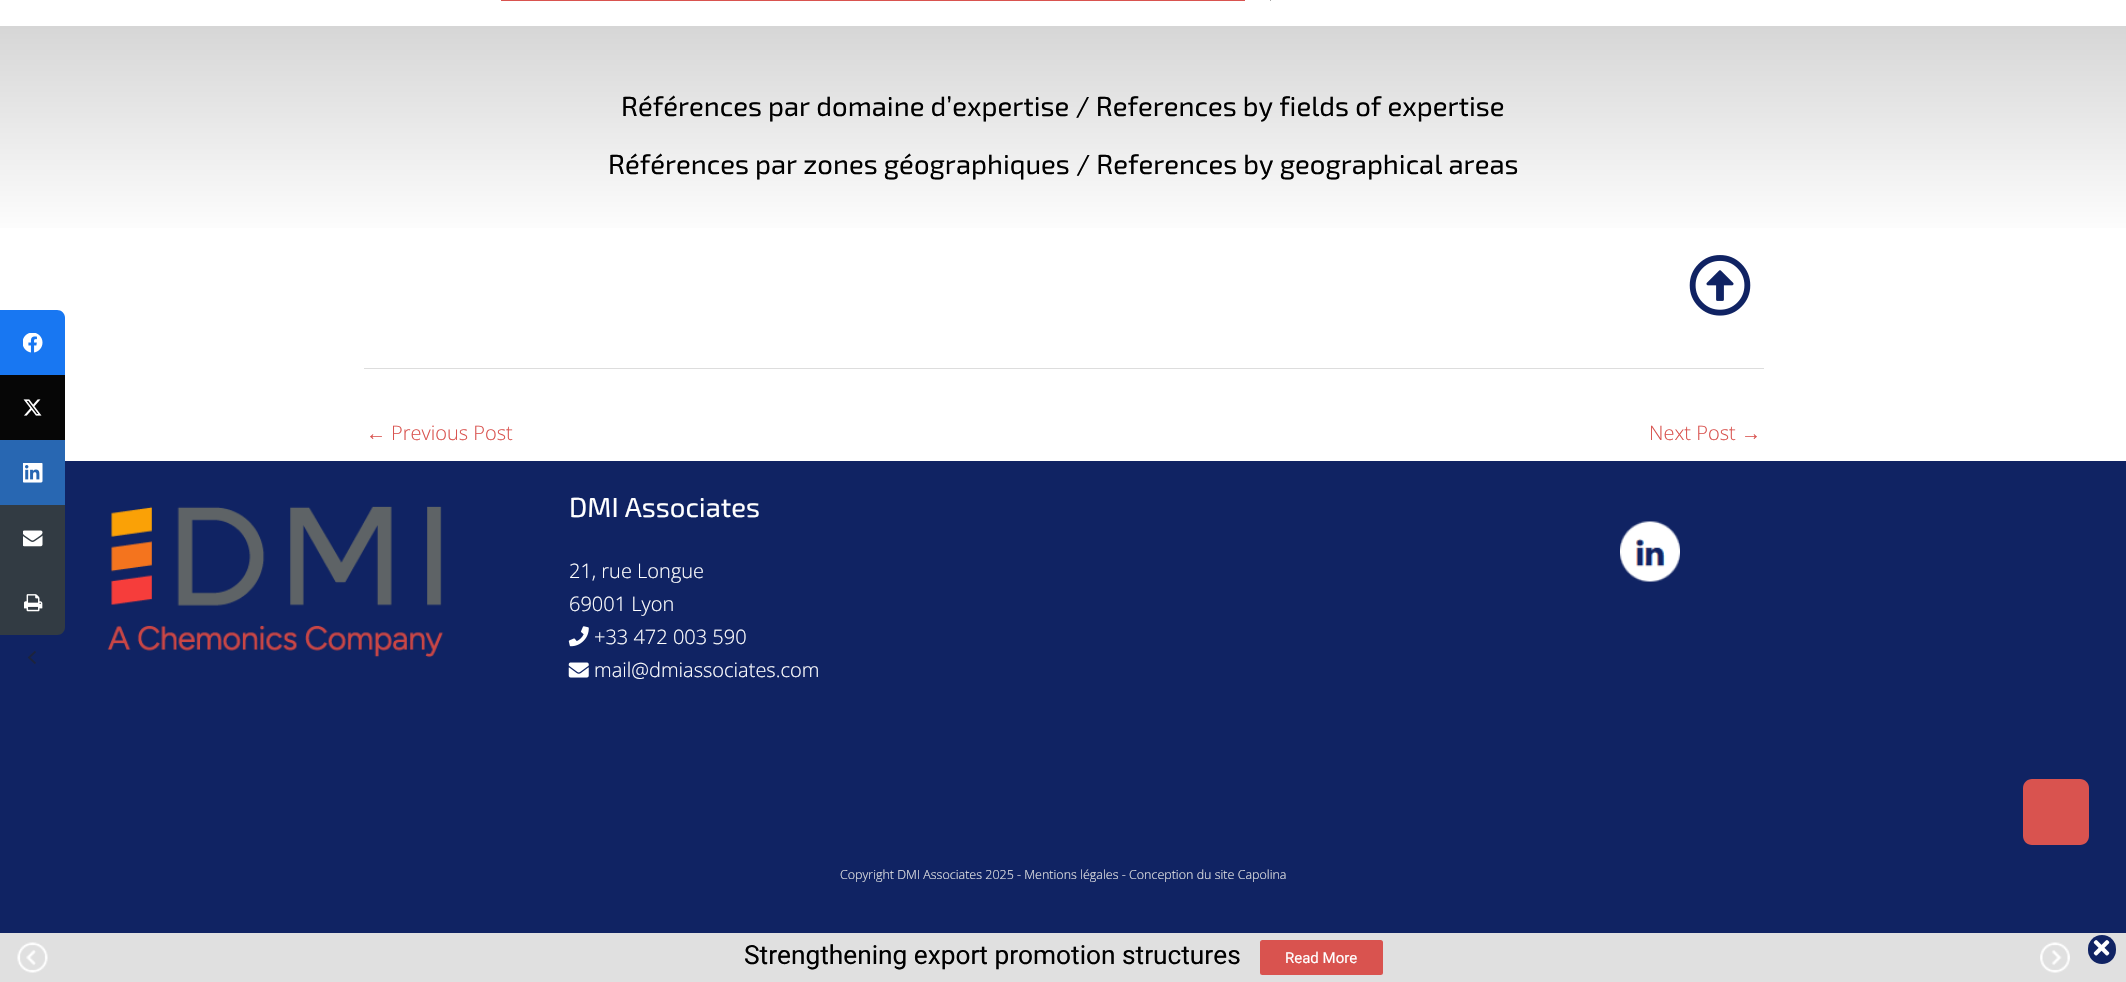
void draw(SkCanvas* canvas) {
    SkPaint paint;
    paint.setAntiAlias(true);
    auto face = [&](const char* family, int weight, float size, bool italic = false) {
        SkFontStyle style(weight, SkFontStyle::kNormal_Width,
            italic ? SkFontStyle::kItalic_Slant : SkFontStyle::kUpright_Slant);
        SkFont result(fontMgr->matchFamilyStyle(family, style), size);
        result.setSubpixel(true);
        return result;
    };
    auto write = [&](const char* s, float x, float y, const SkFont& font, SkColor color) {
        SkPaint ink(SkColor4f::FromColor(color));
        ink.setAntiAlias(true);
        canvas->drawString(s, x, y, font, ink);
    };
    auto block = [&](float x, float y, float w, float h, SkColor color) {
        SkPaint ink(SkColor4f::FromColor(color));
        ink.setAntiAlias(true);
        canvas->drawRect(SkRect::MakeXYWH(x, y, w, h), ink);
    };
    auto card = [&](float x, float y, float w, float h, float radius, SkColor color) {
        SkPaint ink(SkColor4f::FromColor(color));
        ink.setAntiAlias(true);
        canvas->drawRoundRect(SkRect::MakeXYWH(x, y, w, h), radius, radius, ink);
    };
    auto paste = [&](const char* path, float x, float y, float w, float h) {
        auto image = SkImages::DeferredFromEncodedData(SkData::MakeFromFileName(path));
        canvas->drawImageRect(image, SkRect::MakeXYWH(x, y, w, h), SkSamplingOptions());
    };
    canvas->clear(SK_ColorWHITE);
    paint.setColor(SkColorSetRGB(24, 119, 242));
    canvas->drawPath(SkPathBuilder().moveTo(0, 310).lineTo(57, 310).cubicTo(61.5f, 310, 65, 313.5f, 65, 318).lineTo(65, 375).lineTo(0, 375).close().detach(), paint);
    paste("pic1.png", 23, 333, 20, 20);
    block(0, 375, 65, 65, SkColorSetRGB(6, 6, 6));
    paste("pic2.png", 23, 399, 19, 17);
    block(0, 461, 2126, 472, SkColorSetRGB(16, 35, 99));
    block(0, 440, 65, 65, SkColorSetRGB(40, 103, 178));
    paste("pic3.png", 23, 463, 20, 20);
    block(0, 505, 65, 65, SkColorSetRGB(50, 59, 67));
    paste("pic4.png", 23, 530, 20, 17);
    paint.setColor(SkColorSetRGB(50, 59, 67));
    canvas->drawPath(SkPathBuilder().moveTo(0, 570).lineTo(65, 570).lineTo(65, 627).cubicTo(65, 631.5f, 61.5f, 635, 57, 635).lineTo(0, 635).close().detach(), paint);
    paste("pic5.png", 24, 594, 19, 18);
    paint.setStyle(SkPaint::kStroke_Style);
    paint.setStrokeWidth(1.9f);
    paint.setColor(SkColorSetRGB(27, 35, 61));
    canvas->drawPath(SkPathBuilder().moveTo(35.5f, 651.5f).lineTo(29, 657.5f).lineTo(35.5f, 663.5f).detach(), paint);
    block(1270, 0, 1, 1, SkColorSetRGB(168, 168, 168));
    block(501, 0, 744, 1, SkColorSetRGB(217, 83, 79));
    paint.setStyle(SkPaint::kFill_Style);
    {
        const SkColor colors[] = {SkColorSetRGB(214, 214, 214), SK_ColorWHITE};
        const float stops[] = {0, 1};
        const SkPoint ends[] = {{1063, 26}, {1063, 241}};
        paint.setShader(SkGradientShader::MakeLinear(ends, colors, stops, 2, SkTileMode::kClamp));
        paint.setAlpha(255);
    }
    canvas->drawRect(SkRect::MakeXYWH(0, 26, 2126, 202), paint);
    auto kFont1 = face("Exo 2", 400, 27.5f);
    write("Références par domaine d’expertise / References by fields of expertise", 621, 116, kFont1, SK_ColorBLACK);
    write("Références par zones géographiques / References by geographical areas", 608, 174, kFont1, SK_ColorBLACK);
    paste("pic6.png", 1689, 255, 62, 61);
    block(364, 368, 1400, 1, SkColorSetRGB(221, 221, 221));
    auto kFont2 = face("Liberation Sans", 400, 20);
    write("←", 366, 440, kFont2, SkColorSetRGB(217, 83, 79));
    auto kFont3 = face("Open Sans", 300, 20);
    write("Previous Post", 391, 440, kFont3, SkColorSetRGB(217, 83, 79));
    write("Next Post", 1649, 440, kFont3, SkColorSetRGB(217, 83, 79));
    write("→", 1741, 440, kFont2, SkColorSetRGB(217, 83, 79));
    paste("pic7.png", 107, 506, 337, 152);
    write("DMI Associates", 569, 517, kFont1, SK_ColorWHITE);
    write("21, rue Longue", 569, 578, kFont3, SK_ColorWHITE);
    write("69001 Lyon", 569, 611, kFont3, SK_ColorWHITE);
    paste("pic8.png", 568, 626, 21, 21);
    write("+33 472 003 590", 594, 644, kFont3, SK_ColorWHITE);
    paste("pic9.png", 568, 662, 21, 16);
    write("mail@dmiassociates.com", 594, 677, kFont3, SK_ColorWHITE);
    paste("pic10.png", 1620, 521, 60, 61);
    auto kFont4 = face("Open Sans", 300, 12.5f);
    write("Copyright DMI Associates 2025 - Mentions légales - Conception du site Capolina", 840, 879, kFont4, SkColorSetRGB(229, 229, 229));
    paint.setShader(nullptr);
    paint.setColor(SkColorSetRGB(217, 83, 79));
    canvas->drawPath(SkPathBuilder().moveTo(2080, 845).lineTo(2032, 845).cubicTo(2027, 845, 2023, 841, 2023, 836).lineTo(2023, 788).cubicTo(2023, 783, 2027, 779, 2032, 779).lineTo(2080, 779).cubicTo(2085, 779, 2089, 783, 2089, 788).lineTo(2089, 836).cubicTo(2089, 841, 2085, 845, 2080, 845).close().detach(), paint);
    block(0, 933, 2126, 49, SkColorSetRGB(224, 224, 224));
    paste("pic11.png", 17, 942, 31, 31);
    paste("pic12.png", 2040, 942, 30, 31);
    auto kFont5 = face("Roboto", 400, 26.25f);
    write("Strengthening export promotion structures", 744, 964, kFont5, SK_ColorBLACK);
    card(1260, 940, 123, 35, 2.5f, SkColorSetRGB(217, 83, 79));
    auto kFont6 = face("Roboto", 400, 15);
    write("Read More", 1285, 963, kFont6, SK_ColorWHITE);
    card(2088, 935, 28, 29, 14, SkColorSetRGB(16, 35, 99));
    paste("pic13.png", 2093, 940, 17, 16);
}
